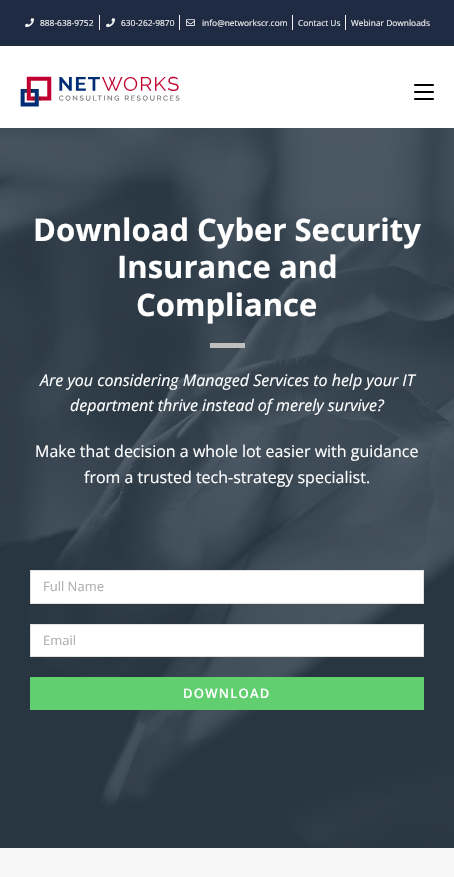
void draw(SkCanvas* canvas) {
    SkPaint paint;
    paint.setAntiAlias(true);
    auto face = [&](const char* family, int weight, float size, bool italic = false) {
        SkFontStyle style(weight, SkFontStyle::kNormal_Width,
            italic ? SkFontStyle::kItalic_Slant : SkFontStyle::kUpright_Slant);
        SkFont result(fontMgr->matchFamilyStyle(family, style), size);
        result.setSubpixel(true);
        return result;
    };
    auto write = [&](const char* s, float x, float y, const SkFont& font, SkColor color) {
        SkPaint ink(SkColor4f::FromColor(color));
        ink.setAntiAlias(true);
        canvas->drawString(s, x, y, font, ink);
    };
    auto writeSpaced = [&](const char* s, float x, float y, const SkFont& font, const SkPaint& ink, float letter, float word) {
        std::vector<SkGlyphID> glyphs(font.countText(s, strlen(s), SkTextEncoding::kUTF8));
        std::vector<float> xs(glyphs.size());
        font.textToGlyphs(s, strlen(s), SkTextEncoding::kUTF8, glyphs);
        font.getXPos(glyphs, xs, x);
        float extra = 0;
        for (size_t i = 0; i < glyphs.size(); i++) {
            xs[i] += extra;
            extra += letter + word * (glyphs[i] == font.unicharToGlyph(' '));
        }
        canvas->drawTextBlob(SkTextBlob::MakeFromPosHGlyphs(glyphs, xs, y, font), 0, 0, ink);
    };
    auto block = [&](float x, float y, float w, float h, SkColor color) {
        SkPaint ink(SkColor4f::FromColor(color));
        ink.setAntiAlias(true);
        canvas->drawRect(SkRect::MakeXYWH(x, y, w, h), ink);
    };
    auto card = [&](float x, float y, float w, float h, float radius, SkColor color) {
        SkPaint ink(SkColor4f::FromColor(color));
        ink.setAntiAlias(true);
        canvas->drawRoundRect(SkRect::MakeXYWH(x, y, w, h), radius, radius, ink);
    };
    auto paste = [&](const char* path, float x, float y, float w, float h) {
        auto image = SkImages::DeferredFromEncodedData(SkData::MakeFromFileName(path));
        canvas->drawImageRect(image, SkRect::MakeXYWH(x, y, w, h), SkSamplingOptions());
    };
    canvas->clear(SK_ColorWHITE);
    block(0, 0, 454, 46, SkColorSetRGB(31, 43, 66));
    paste("pic1.png", 25, 18, 9, 10);
    auto kFont1 = face("Open Sans", 400, 8.4f);
    write("888-638-9752", 40, 26, kFont1, SkColorSetRGB(244, 244, 244));
    block(99, 15, 1, 15, SkColorSetRGB(244, 244, 244));
    paste("pic1.png", 106, 18, 9, 10);
    write("630-262-9870", 121, 26, kFont1, SkColorSetRGB(244, 244, 244));
    block(179, 15, 1, 15, SkColorSetRGB(244, 244, 244));
    paste("pic2.png", 186, 19, 9, 7);
    write("info@networkscr.com", 202, 26, kFont1, SkColorSetRGB(244, 244, 244));
    block(292, 15, 1, 15, SkColorSetRGB(244, 244, 244));
    write("Contact Us", 298, 26, kFont1, SkColorSetRGB(244, 244, 244));
    block(345, 15, 1, 15, SkColorSetRGB(244, 244, 244));
    write("Webinar Downloads", 351, 26, kFont1, SkColorSetRGB(244, 244, 244));
    paste("pic3.png", 20, 76, 160, 31);
    card(414, 91, 20, 2, 1, SK_ColorBLACK);
    card(414, 84, 20, 2, 1, SK_ColorBLACK);
    card(414, 98, 20, 2, 1, SK_ColorBLACK);
    paste("pic4.png", 0, 128, 454, 720);
    auto kFont2 = face("Open Sans", 700, 31);
    write("Download Cyber Security", 33, 241, kFont2, SK_ColorWHITE);
    write("Insurance and", 117, 278, kFont2, SK_ColorWHITE);
    write("Compliance", 136, 316, kFont2, SK_ColorWHITE);
    block(210, 343, 35, 5, SkColorSetRGB(191, 191, 191));
    auto kFont3 = face("Open Sans", 400, 16, true);
    write("Are you considering Managed Services to help your IT", 40, 386, kFont3, SK_ColorWHITE);
    write("department thrive instead of merely survive?", 70, 411, kFont3, SK_ColorWHITE);
    auto kFont4 = face("Open Sans", 400, 16);
    write("Make that decision a whole lot easier with guidance", 35, 457, kFont4, SK_ColorWHITE);
    write("from a trusted tech-strategy specialist.", 84, 483, kFont4, SK_ColorWHITE);
    paint.setColor(SK_ColorWHITE);
    canvas->drawRect(SkRect::MakeXYWH(30.5f, 570.5f, 393, 33), paint);
    paint.setStyle(SkPaint::kStroke_Style);
    paint.setStrokeWidth(1);
    paint.setColor(SkColorSetRGB(226, 226, 226));
    canvas->drawRect(SkRect::MakeXYWH(30.5f, 570.5f, 393, 33), paint);
    auto kFont5 = face("Open Sans", 400, 13);
    write("Full Name", 43, 591, kFont5, SkColorSetRGB(175, 175, 175));
    paint.setStyle(SkPaint::kFill_Style);
    paint.setColor(SK_ColorWHITE);
    canvas->drawRect(SkRect::MakeXYWH(30.5f, 624.5f, 393, 32), paint);
    paint.setStyle(SkPaint::kStroke_Style);
    paint.setColor(SkColorSetRGB(226, 226, 226));
    canvas->drawRect(SkRect::MakeXYWH(30.5f, 624.5f, 393, 32), paint);
    write("Email", 43, 645, kFont5, SkColorSetRGB(175, 175, 175));
    block(30, 677, 394, 33, SkColorSetRGB(97, 206, 112));
    auto kFont6 = face("Open Sans", 600, 13);
    paint.setStyle(SkPaint::kFill_Style);
    paint.setColor(SK_ColorWHITE);
    writeSpaced("DOWNLOAD", 183, 698, kFont6, paint, 1.25f, 0);
    block(0, 848, 454, 29, SkColorSetRGB(247, 247, 247));
}
